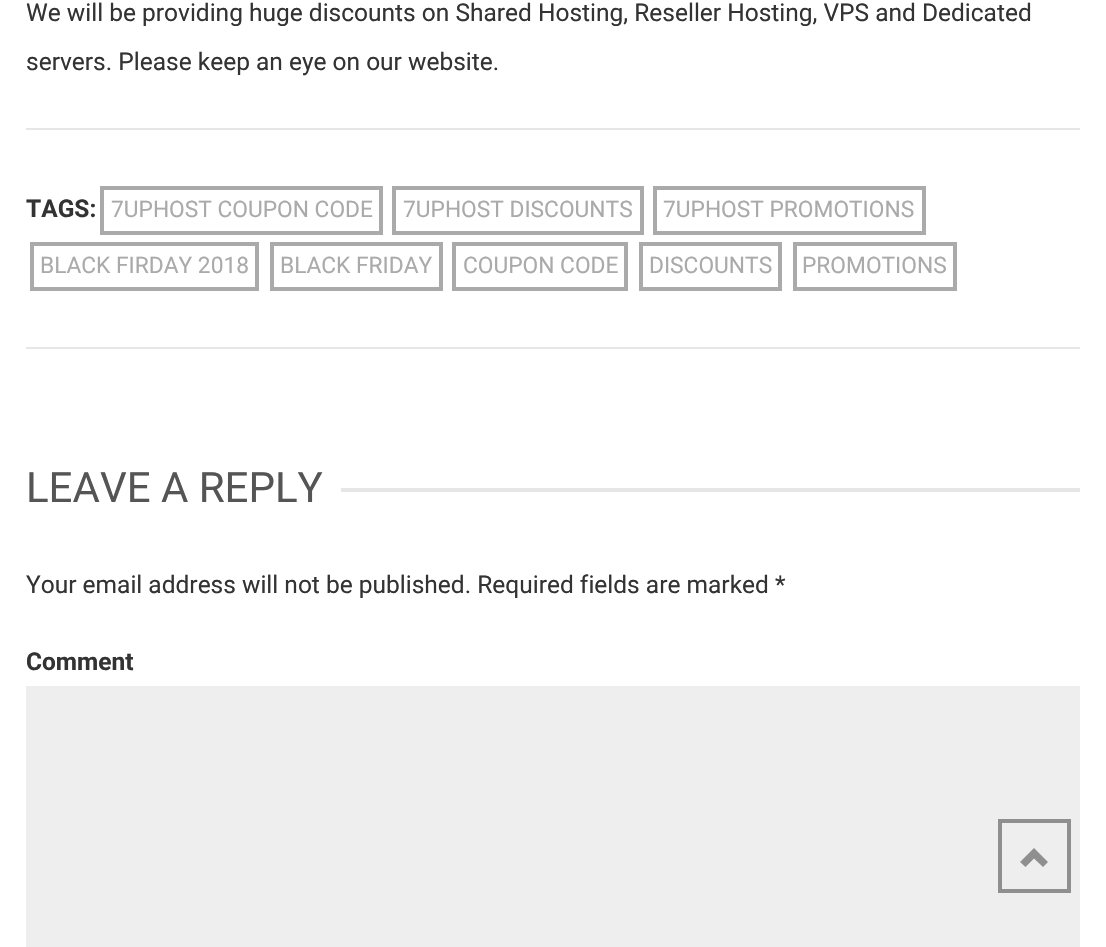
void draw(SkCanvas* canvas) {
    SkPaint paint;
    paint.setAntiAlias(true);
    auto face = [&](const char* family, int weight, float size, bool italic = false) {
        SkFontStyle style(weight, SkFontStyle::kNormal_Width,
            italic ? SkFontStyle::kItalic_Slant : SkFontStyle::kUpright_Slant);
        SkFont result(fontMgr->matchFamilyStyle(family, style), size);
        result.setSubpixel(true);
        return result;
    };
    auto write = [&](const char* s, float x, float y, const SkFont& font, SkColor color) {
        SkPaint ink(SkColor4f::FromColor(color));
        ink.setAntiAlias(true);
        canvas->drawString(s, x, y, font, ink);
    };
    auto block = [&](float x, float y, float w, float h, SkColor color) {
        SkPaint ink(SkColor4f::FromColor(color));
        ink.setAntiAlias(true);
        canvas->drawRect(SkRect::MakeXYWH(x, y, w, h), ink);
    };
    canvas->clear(SK_ColorWHITE);
    auto kFont1 = face("Roboto", 400, 24.5f);
    write("We will be providing huge discounts on Shared Hosting, Reseller Hosting, VPS and Dedicated", 26, 21, kFont1, SkColorSetRGB(51, 51, 51));
    write("servers. Please keep an eye on our website.", 26, 70, kFont1, SkColorSetRGB(51, 51, 51));
    block(26, 128, 1054, 2, SkColorSetRGB(230, 230, 230));
    block(26, 347, 1054, 2, SkColorSetRGB(230, 230, 230));
    auto kFont2 = face("Roboto", 700, 24.5f);
    write("TAGS:", 26, 217, kFont2, SkColorSetRGB(51, 51, 51));
    paint.setStyle(SkPaint::kStroke_Style);
    paint.setStrokeWidth(4);
    paint.setColor(SkColorSetRGB(170, 170, 170));
    canvas->drawRect(SkRect::MakeXYWH(102, 188, 279, 45), paint);
    auto kFont3 = face("Roboto", 400, 22.75f);
    write("7UPHOST COUPON CODE", 111, 217, kFont3, SkColorSetRGB(170, 170, 170));
    canvas->drawRect(SkRect::MakeXYWH(394, 188, 248, 45), paint);
    write("7UPHOST DISCOUNTS", 403, 217, kFont3, SkColorSetRGB(170, 170, 170));
    canvas->drawRect(SkRect::MakeXYWH(655, 188, 269, 45), paint);
    write("7UPHOST PROMOTIONS", 663, 217, kFont3, SkColorSetRGB(170, 170, 170));
    canvas->drawRect(SkRect::MakeXYWH(32, 244, 225, 45), paint);
    write("BLACK FIRDAY 2018", 40, 273, kFont3, SkColorSetRGB(170, 170, 170));
    canvas->drawRect(SkRect::MakeXYWH(272, 244, 169, 45), paint);
    write("BLACK FRIDAY", 280, 273, kFont3, SkColorSetRGB(170, 170, 170));
    canvas->drawRect(SkRect::MakeXYWH(454, 244, 172, 45), paint);
    write("COUPON CODE", 463, 273, kFont3, SkColorSetRGB(170, 170, 170));
    canvas->drawRect(SkRect::MakeXYWH(641, 244, 139, 45), paint);
    write("DISCOUNTS", 649, 273, kFont3, SkColorSetRGB(170, 170, 170));
    canvas->drawRect(SkRect::MakeXYWH(795, 244, 160, 45), paint);
    write("PROMOTIONS", 802, 273, kFont3, SkColorSetRGB(170, 170, 170));
    auto kFont4 = face("Roboto", 400, 42);
    write("LEAVE A REPLY", 26, 502, kFont4, SkColorSetRGB(85, 85, 85));
    block(341, 488, 739, 4, SkColorSetRGB(230, 230, 230));
    write("Your email address will not be published. Required fields are marked *", 26, 593, kFont1, SkColorSetRGB(51, 51, 51));
    write("Comment", 26, 670, kFont2, SkColorSetRGB(51, 51, 51));
    block(26, 686, 1054, 261, SkColorSetRGB(238, 238, 238));
    paint.setColor(SkColorSetRGB(143, 143, 143));
    canvas->drawRect(SkRect::MakeXYWH(1000, 821, 69, 70), paint);
    paint.setStyle(SkPaint::kFill_Style);
    canvas->drawPath(SkPathBuilder().moveTo(1020, 862).lineTo(1025.5f, 867).lineTo(1034, 858.5f).lineTo(1043, 867).lineTo(1048, 862).lineTo(1034, 848).close().detach(), paint);
}
